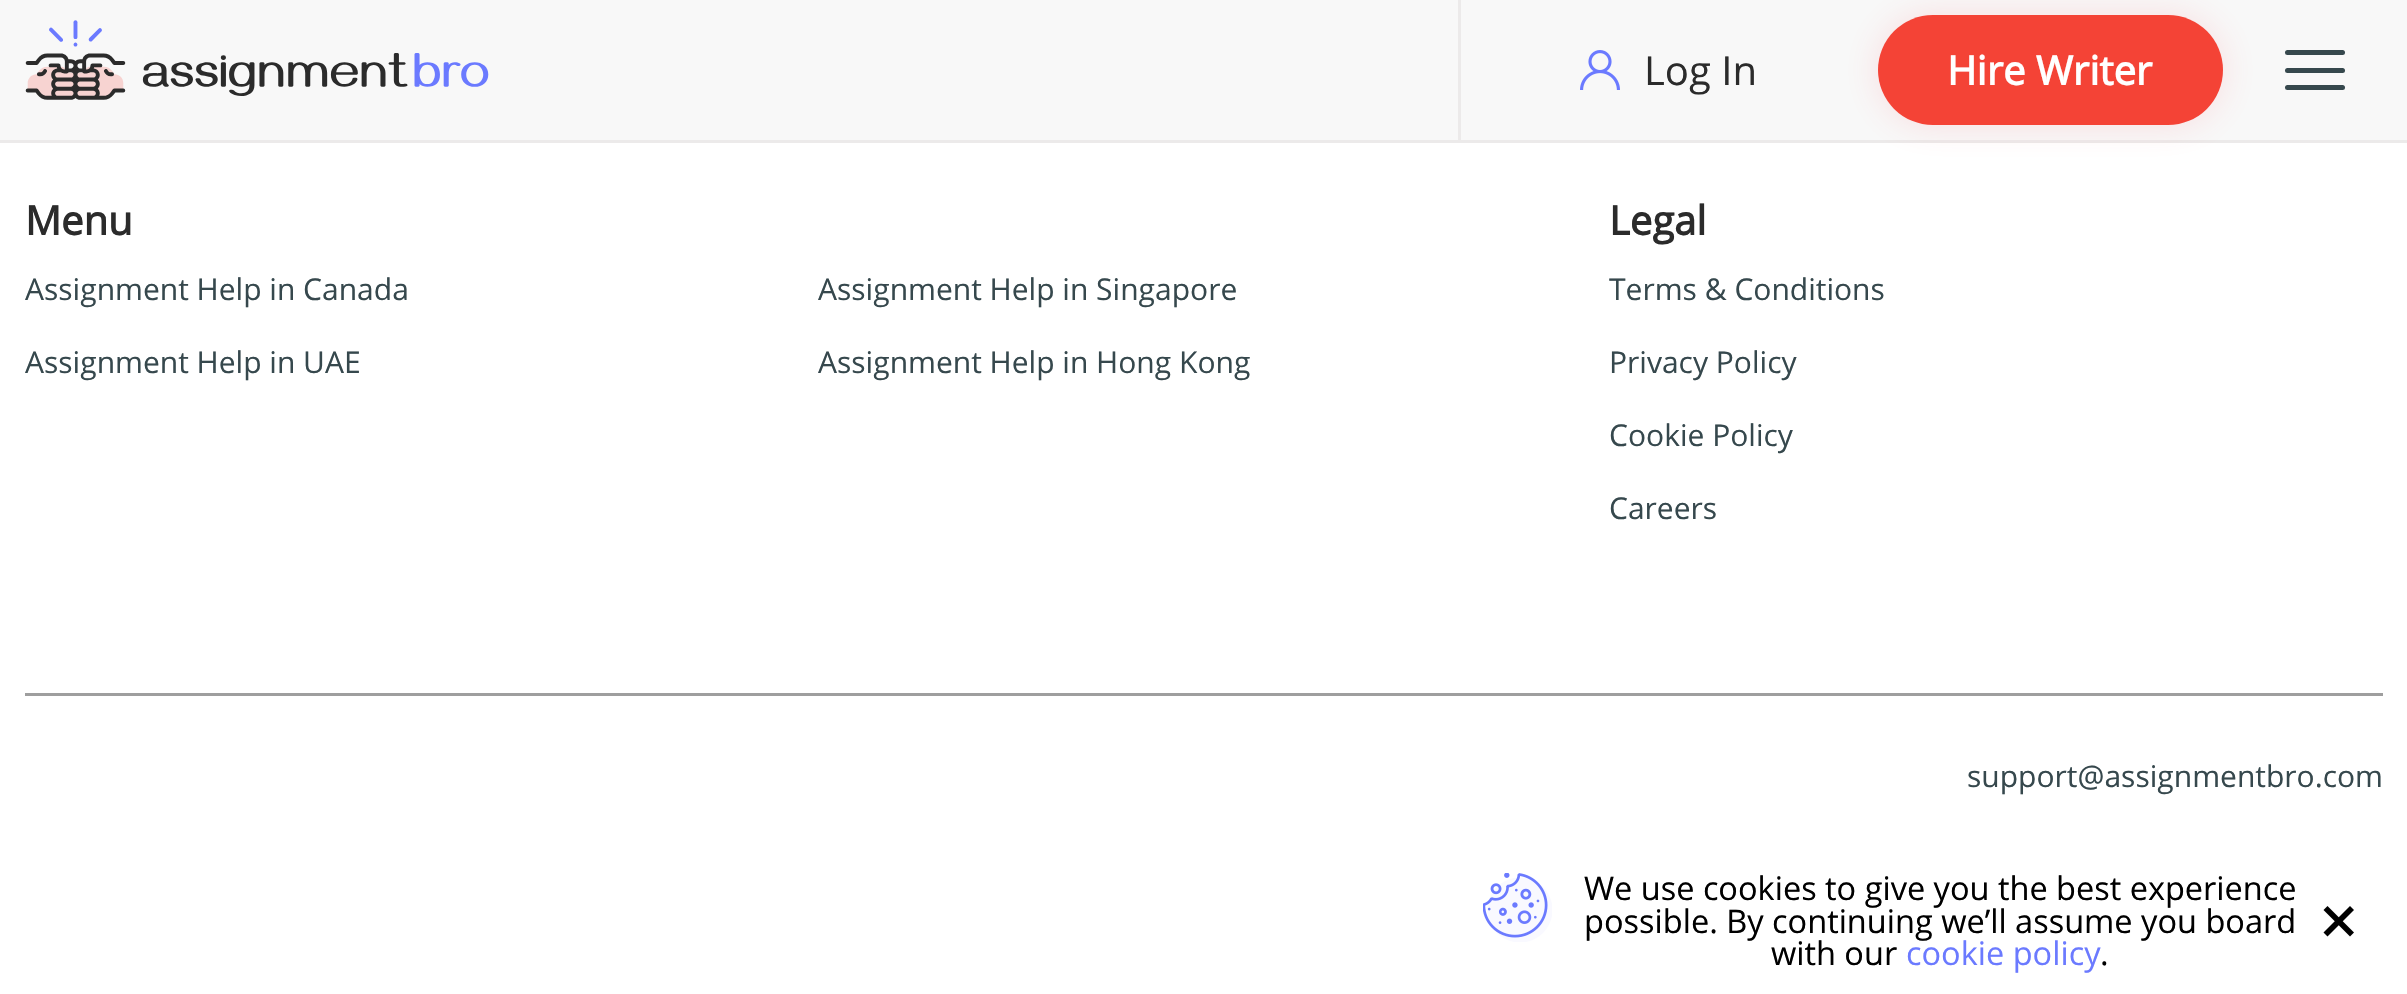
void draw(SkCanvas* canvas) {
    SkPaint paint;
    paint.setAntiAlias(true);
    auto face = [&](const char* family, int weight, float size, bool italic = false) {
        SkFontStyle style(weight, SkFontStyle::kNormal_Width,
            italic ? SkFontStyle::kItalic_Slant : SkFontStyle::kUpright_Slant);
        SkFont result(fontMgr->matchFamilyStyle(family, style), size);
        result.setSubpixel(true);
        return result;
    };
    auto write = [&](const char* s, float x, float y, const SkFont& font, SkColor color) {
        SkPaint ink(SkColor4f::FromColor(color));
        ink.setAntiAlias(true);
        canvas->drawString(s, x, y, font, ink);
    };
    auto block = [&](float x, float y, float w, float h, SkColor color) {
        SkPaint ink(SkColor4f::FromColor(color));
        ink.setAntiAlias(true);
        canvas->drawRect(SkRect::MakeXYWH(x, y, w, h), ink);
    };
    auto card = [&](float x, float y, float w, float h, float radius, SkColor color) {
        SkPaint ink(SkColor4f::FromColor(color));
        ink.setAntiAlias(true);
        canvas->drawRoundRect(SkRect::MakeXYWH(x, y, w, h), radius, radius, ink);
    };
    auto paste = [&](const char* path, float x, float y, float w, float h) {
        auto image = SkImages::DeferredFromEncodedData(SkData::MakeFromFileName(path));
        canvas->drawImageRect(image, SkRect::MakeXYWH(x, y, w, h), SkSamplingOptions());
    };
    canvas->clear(SK_ColorWHITE);
    block(0, 0, 2407, 140, SkColorSetRGB(248, 248, 248));
    block(0, 140, 2407, 3, SkColorSetRGB(236, 234, 234));
    paste("pic1.png", 25, 20, 464, 80);
    block(1458, 0, 3, 140, SkColorSetRGB(236, 234, 234));
    paste("pic2.png", 1580, 50, 40, 40);
    auto kFont1 = face("Open Sans", 400, 40);
    write("Log In", 1644, 85, kFont1, SkColorSetRGB(43, 43, 43));
    paint.setColor(SkColorSetARGB(38, 255, 75, 85));
    paint.setMaskFilter(SkMaskFilter::MakeBlur(kNormal_SkBlurStyle, 17.5f));
    canvas->drawRoundRect(SkRect::MakeXYWH(1878, 15, 345, 110), 55, 55, paint);
    paint.setMaskFilter(nullptr);
    card(1878, 15, 345, 110, 55, SkColorSetRGB(244, 67, 54));
    auto kFont2 = face("Open Sans", 700, 40);
    write("Hire Writer", 1947, 85, kFont2, SK_ColorWHITE);
    card(2285, 68, 60, 5, 2.5f, SkColorSetRGB(54, 72, 77));
    card(2285, 50, 60, 5, 2.5f, SkColorSetRGB(54, 72, 77));
    card(2285, 85, 60, 5, 2.5f, SkColorSetRGB(54, 72, 77));
    write("Menu", 25, 235, kFont2, SkColorSetRGB(43, 43, 43));
    auto kFont3 = face("Open Sans", 400, 30);
    write("Assignment Help in Canada", 25, 300, kFont3, SkColorSetRGB(54, 72, 77));
    write("Assignment Help in Singapore", 818, 300, kFont3, SkColorSetRGB(54, 72, 77));
    write("Assignment Help in UAE", 25, 373, kFont3, SkColorSetRGB(54, 72, 77));
    write("Assignment Help in Hong Kong", 818, 373, kFont3, SkColorSetRGB(54, 72, 77));
    write("Legal", 1609, 235, kFont2, SkColorSetRGB(43, 43, 43));
    write("Terms & Conditions", 1609, 300, kFont3, SkColorSetRGB(54, 72, 77));
    write("Privacy Policy", 1609, 373, kFont3, SkColorSetRGB(54, 72, 77));
    write("Cookie Policy", 1609, 446, kFont3, SkColorSetRGB(54, 72, 77));
    write("Careers", 1609, 519, kFont3, SkColorSetRGB(54, 72, 77));
    block(25, 693, 2358, 3, SkColorSetRGB(158, 158, 158));
    write("support@assignmentbro.com", 1967, 787, kFont3, SkColorSetRGB(54, 72, 77));
    paste("pic3.png", 1483, 873, 69, 69);
    auto kFont4 = face("Open Sans", 400, 32.5f);
    write("We use cookies to give you the best experience", 1584, 900, kFont4, SK_ColorBLACK);
    write("possible. By continuing we’ll assume you board", 1584, 933, kFont4, SK_ColorBLACK);
    write("with our", 1771, 965, kFont4, SK_ColorBLACK);
    write("cookie policy", 1906, 965, kFont4, SkColorSetRGB(107, 122, 255));
    write(".", 2100, 965, kFont4, SK_ColorBLACK);
    paint.setColor(SK_ColorBLACK);
    canvas->drawPath(SkPathBuilder().moveTo(2323.5f, 932.5f).lineTo(2350, 906).lineTo(2354, 910).lineTo(2327.5f, 936.5f).close().detach(), paint);
    canvas->drawPath(SkPathBuilder().moveTo(2327.5f, 906).lineTo(2354, 932.5f).lineTo(2350, 936.5f).lineTo(2323.5f, 910).close().detach(), paint);
}
